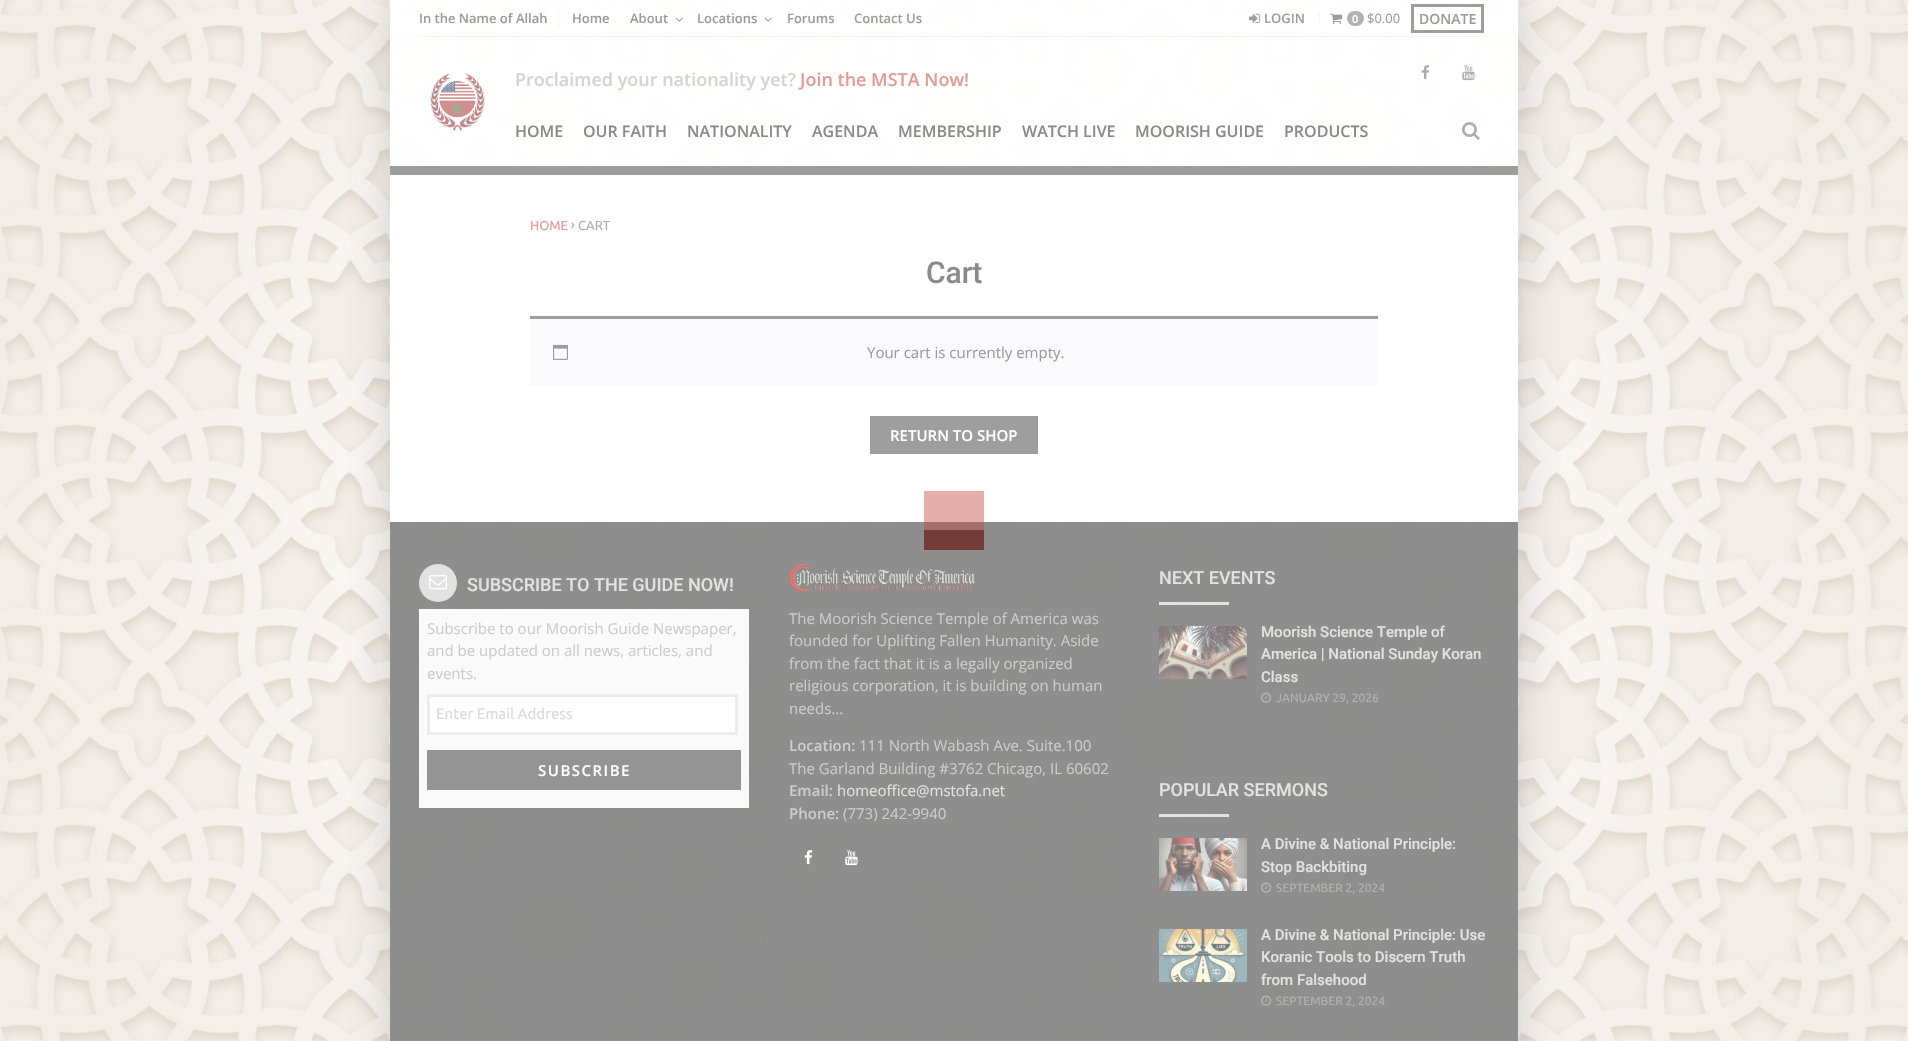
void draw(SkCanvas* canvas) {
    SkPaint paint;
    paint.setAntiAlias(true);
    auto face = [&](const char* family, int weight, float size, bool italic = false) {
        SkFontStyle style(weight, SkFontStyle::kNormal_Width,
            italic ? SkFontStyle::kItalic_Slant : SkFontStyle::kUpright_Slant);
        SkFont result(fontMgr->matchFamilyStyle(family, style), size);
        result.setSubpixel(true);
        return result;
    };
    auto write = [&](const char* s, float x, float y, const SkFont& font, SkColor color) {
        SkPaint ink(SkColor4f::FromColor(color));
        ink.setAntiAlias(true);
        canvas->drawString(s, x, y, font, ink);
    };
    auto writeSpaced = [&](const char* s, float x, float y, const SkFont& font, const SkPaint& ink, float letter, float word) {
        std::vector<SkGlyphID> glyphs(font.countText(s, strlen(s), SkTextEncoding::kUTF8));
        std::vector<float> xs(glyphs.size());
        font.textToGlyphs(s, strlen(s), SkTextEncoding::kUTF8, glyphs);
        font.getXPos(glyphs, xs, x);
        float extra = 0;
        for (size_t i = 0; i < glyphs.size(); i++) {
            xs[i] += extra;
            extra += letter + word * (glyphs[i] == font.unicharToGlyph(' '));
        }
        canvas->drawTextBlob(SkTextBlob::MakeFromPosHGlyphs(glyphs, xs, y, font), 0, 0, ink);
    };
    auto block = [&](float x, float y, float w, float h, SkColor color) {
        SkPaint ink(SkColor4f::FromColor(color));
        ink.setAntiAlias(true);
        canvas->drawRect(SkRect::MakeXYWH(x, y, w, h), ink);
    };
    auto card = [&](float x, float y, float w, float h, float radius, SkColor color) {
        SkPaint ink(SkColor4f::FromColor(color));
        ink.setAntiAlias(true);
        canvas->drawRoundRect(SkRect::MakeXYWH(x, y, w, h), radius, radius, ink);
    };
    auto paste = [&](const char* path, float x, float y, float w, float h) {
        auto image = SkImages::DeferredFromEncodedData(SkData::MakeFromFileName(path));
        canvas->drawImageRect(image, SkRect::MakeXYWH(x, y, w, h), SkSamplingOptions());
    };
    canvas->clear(SK_ColorWHITE);
    paste("pic1.png", 0, 0, 1908, 1041);
    canvas->save();
    canvas->clipPath(SkPathBuilder(SkPathFillType::kEvenOdd).moveTo(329, 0).lineTo(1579, 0).lineTo(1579, 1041).lineTo(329, 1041).close().moveTo(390, 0).lineTo(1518, 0).lineTo(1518, 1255).lineTo(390, 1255).close().detach(), true);
    paint.setColor(SkColorSetARGB(77, 110, 110, 110));
    paint.setMaskFilter(SkMaskFilter::MakeBlur(kNormal_SkBlurStyle, 20));
    canvas->drawRect(SkRect::MakeXYWH(390, 0, 1128, 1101), paint);
    paint.setMaskFilter(nullptr);
    canvas->restore();
    block(390, 0, 1128, 166, SkColorSetARGB(242, 255, 255, 255));
    block(390, 166, 1128, 9, SkColorSetRGB(158, 158, 158));
    block(419, 36, 1070, 1, SkColorSetRGB(245, 245, 245));
    block(558, 9, 1, 20, SkColorSetRGB(245, 245, 245));
    auto kFont1 = face("Open Sans", 600, 13);
    write("In the Name of Allah", 419, 23, kFont1, SkColorSetRGB(156, 156, 156));
    write("Home", 572, 23, kFont1, SkColorSetRGB(156, 156, 156));
    write("About", 630, 23, kFont1, SkColorSetRGB(156, 156, 156));
    paste("pic2.png", 675, 17, 8, 5);
    write("Locations", 697, 23, kFont1, SkColorSetRGB(156, 156, 156));
    paste("pic3.png", 764, 17, 8, 5);
    write("Forums", 787, 23, kFont1, SkColorSetRGB(156, 156, 156));
    write("Contact Us", 854, 23, kFont1, SkColorSetRGB(156, 156, 156));
    paste("pic4.png", 1249, 13, 12, 10);
    write("LOGIN", 1264, 23, kFont1, SkColorSetRGB(156, 156, 156));
    paste("pic5.png", 1330, 13, 13, 11);
    card(1347, 11, 17, 15, 7.5f, SkColorSetRGB(177, 177, 177));
    auto kFont2 = face("Open Sans", 600, 11);
    write("0", 1352, 23, kFont2, SK_ColorWHITE);
    block(1319, 12, 1, 13, SkColorSetRGB(245, 245, 245));
    auto kFont3 = face("Open Sans", 400, 13);
    write("$0.00", 1367, 23, kFont3, SkColorSetRGB(156, 156, 156));
    paint.setStyle(SkPaint::kStroke_Style);
    paint.setStrokeWidth(3);
    paint.setColor(SkColorSetRGB(158, 158, 158));
    canvas->drawRect(SkRect::MakeXYWH(1412.5f, 5.5f, 70, 26), paint);
    auto kFont4 = face("Open Sans", 600, 14);
    write("DONATE", 1419, 24, kFont4, SkColorSetRGB(156, 156, 156));
    paste("pic6.png", 430, 73, 55, 58);
    auto kFont5 = face("Open Sans", 600, 18);
    write("Proclaimed your nationality yet?", 515, 86, kFont5, SkColorSetRGB(212, 212, 212));
    write("Join the MSTA Now!", 800, 86, kFont5, SkColorSetRGB(229, 155, 147));
    paste("pic7.png", 1421, 65, 8, 15);
    paste("pic8.png", 1462, 65, 13, 16);
    auto kFont6 = face("Open Sans", 600, 16);
    write("HOME", 515, 137, kFont6, SkColorSetRGB(139, 138, 138));
    write("OUR FAITH", 583, 137, kFont6, SkColorSetRGB(139, 138, 138));
    write("NATIONALITY", 687, 137, kFont6, SkColorSetRGB(139, 138, 138));
    write("AGENDA", 812, 137, kFont6, SkColorSetRGB(139, 138, 138));
    write("MEMBERSHIP", 898, 137, kFont6, SkColorSetRGB(139, 138, 138));
    write("WATCH LIVE", 1022, 137, kFont6, SkColorSetRGB(139, 138, 138));
    write("MOORISH GUIDE", 1135, 137, kFont6, SkColorSetRGB(139, 138, 138));
    write("PRODUCTS", 1284, 137, kFont6, SkColorSetRGB(139, 138, 138));
    paste("pic9.png", 1462, 122, 18, 18);
    block(390, 175, 1128, 347, SK_ColorWHITE);
    auto kFont7 = face("Ubuntu", 400, 13);
    write("HOME", 530, 230, kFont7, SkColorSetRGB(229, 155, 147));
    write("›", 571, 229, kFont7, SkColorSetRGB(177, 177, 177));
    write("CART", 578, 230, kFont7, SkColorSetRGB(177, 177, 177));
    auto kFont8 = face("Roboto", 500, 30);
    write("Cart", 926, 283, kFont8, SkColorSetRGB(139, 138, 138));
    block(530, 319, 848, 67, SkColorSetRGB(250, 249, 251));
    block(530, 316, 848, 3, SkColorSetRGB(158, 158, 158));
    paste("pic10.png", 553, 344, 15, 16);
    auto kFont9 = face("Open Sans", 400, 15);
    write("Your cart is currently empty.", 867, 358, kFont9, SkColorSetRGB(156, 156, 156));
    block(870, 416, 168, 38, SkColorSetRGB(158, 158, 158));
    auto kFont10 = face("Open Sans", 600, 15);
    write("RETURN TO SHOP", 890, 441, kFont10, SK_ColorWHITE);
    block(390, 522, 1128, 519, SkColorSetARGB(242, 136, 136, 136));
    paint.setStyle(SkPaint::kFill_Style);
    paint.setColor(SkColorSetRGB(226, 226, 226));
    canvas->drawCircle(438, 583, 19, paint);
    paste("pic11.png", 429, 575, 18, 15);
    auto kFont11 = face("Roboto", 500, 18);
    write("SUBSCRIBE TO THE GUIDE NOW!", 467, 591, kFont11, SkColorSetRGB(226, 226, 226));
    block(419, 609, 330, 199, SkColorSetRGB(250, 250, 250));
    write("Subscribe to our Moorish Guide Newspaper,", 427, 634, kFont9, SkColorSetRGB(204, 204, 204));
    write("and be updated on all news, articles, and", 427, 656, kFont9, SkColorSetRGB(204, 204, 204));
    write("events.", 427, 679, kFont9, SkColorSetRGB(204, 204, 204));
    paint.setColor(SK_ColorWHITE);
    canvas->drawRect(SkRect::MakeXYWH(428.5f, 695.5f, 308, 38), paint);
    paint.setStyle(SkPaint::kStroke_Style);
    paint.setColor(SkColorSetRGB(236, 236, 236));
    canvas->drawRect(SkRect::MakeXYWH(428.5f, 695.5f, 308, 38), paint);
    auto kFont12 = face("Ubuntu", 400, 15);
    write("Enter Email Address", 436, 719, kFont12, SkColorSetRGB(220, 220, 220));
    block(427, 750, 314, 40, SkColorSetRGB(148, 148, 148));
    paint.setStyle(SkPaint::kFill_Style);
    paint.setColor(SK_ColorWHITE);
    writeSpaced("SUBSCRIBE", 538, 776, kFont10, paint, 1.5f, 0);
    paste("pic12.png", 789, 564, 186, 28);
    write("The Moorish Science Temple of America was", 789, 624, kFont9, SkColorSetRGB(204, 204, 204));
    write("founded for Uplifting Fallen Humanity. Aside", 789, 646, kFont9, SkColorSetRGB(204, 204, 204));
    write("from the fact that it is a legally organized", 789, 669, kFont9, SkColorSetRGB(204, 204, 204));
    write("religious corporation, it is building on human", 789, 691, kFont9, SkColorSetRGB(204, 204, 204));
    write("needs...", 789, 714, kFont9, SkColorSetRGB(204, 204, 204));
    write("Location:", 789, 751, kFont10, SkColorSetRGB(204, 204, 204));
    write("111 North Wabash Ave. Suite.100", 859, 751, kFont9, SkColorSetRGB(204, 204, 204));
    write("The Garland Building #3762 Chicago, IL 60602", 789, 774, kFont9, SkColorSetRGB(204, 204, 204));
    write("Email:", 789, 796, kFont10, SkColorSetRGB(204, 204, 204));
    write("homeoffice@mstofa.net", 837, 796, kFont9, SkColorSetRGB(226, 226, 226));
    write("Phone:", 789, 819, kFont10, SkColorSetRGB(204, 204, 204));
    write("(773) 242-9940", 843, 819, kFont9, SkColorSetRGB(204, 204, 204));
    paste("pic13.png", 804, 850, 9, 15);
    paste("pic14.png", 845, 850, 13, 16);
    write("NEXT EVENTS", 1159, 584, kFont11, SkColorSetRGB(226, 226, 226));
    block(1159, 602, 70, 3, SkColorSetRGB(226, 226, 226));
    paste("pic15.png", 1159, 626, 88, 53);
    auto kFont13 = face("Roboto", 500, 15);
    write("Moorish Science Temple of", 1261, 637, kFont13, SkColorSetRGB(226, 226, 226));
    write("America | National Sunday Koran", 1261, 659, kFont13, SkColorSetRGB(226, 226, 226));
    write("Class", 1261, 682, kFont13, SkColorSetRGB(226, 226, 226));
    paste("pic16.png", 1261, 692, 11, 11);
    auto kFont14 = face("Ubuntu", 400, 12);
    write("JANUARY 29, 2026", 1276, 702, kFont14, SkColorSetRGB(177, 177, 177));
    write("POPULAR SERMONS", 1159, 796, kFont11, SkColorSetRGB(226, 226, 226));
    block(1159, 814, 70, 3, SkColorSetRGB(226, 226, 226));
    paste("pic17.png", 1159, 838, 88, 53);
    write("A Divine & National Principle:", 1261, 849, kFont13, SkColorSetRGB(226, 226, 226));
    write("Stop Backbiting", 1261, 872, kFont13, SkColorSetRGB(226, 226, 226));
    paste("pic18.png", 1261, 882, 11, 11);
    write("SEPTEMBER 2, 2024", 1276, 892, kFont14, SkColorSetRGB(177, 177, 177));
    paste("pic19.png", 1159, 929, 88, 53);
    write("A Divine & National Principle: Use", 1261, 940, kFont13, SkColorSetRGB(226, 226, 226));
    write("Koranic Tools to Discern Truth", 1261, 962, kFont13, SkColorSetRGB(226, 226, 226));
    write("from Falsehood", 1261, 985, kFont13, SkColorSetRGB(226, 226, 226));
    paste("pic20.png", 1261, 995, 11, 11);
    write("SEPTEMBER 2, 2024", 1276, 1005, kFont14, SkColorSetRGB(177, 177, 177));
    block(924, 491, 60, 19, SkColorSetRGB(230, 174, 171));
    block(924, 510, 20, 20, SkColorSetARGB(110, 196, 67, 60));
    block(944, 510, 20, 20, SkColorSetARGB(110, 196, 67, 60));
    block(964, 510, 20, 20, SkColorSetARGB(110, 196, 67, 60));
    block(924, 530, 60, 20, SkColorSetRGB(116, 60, 57));
}
